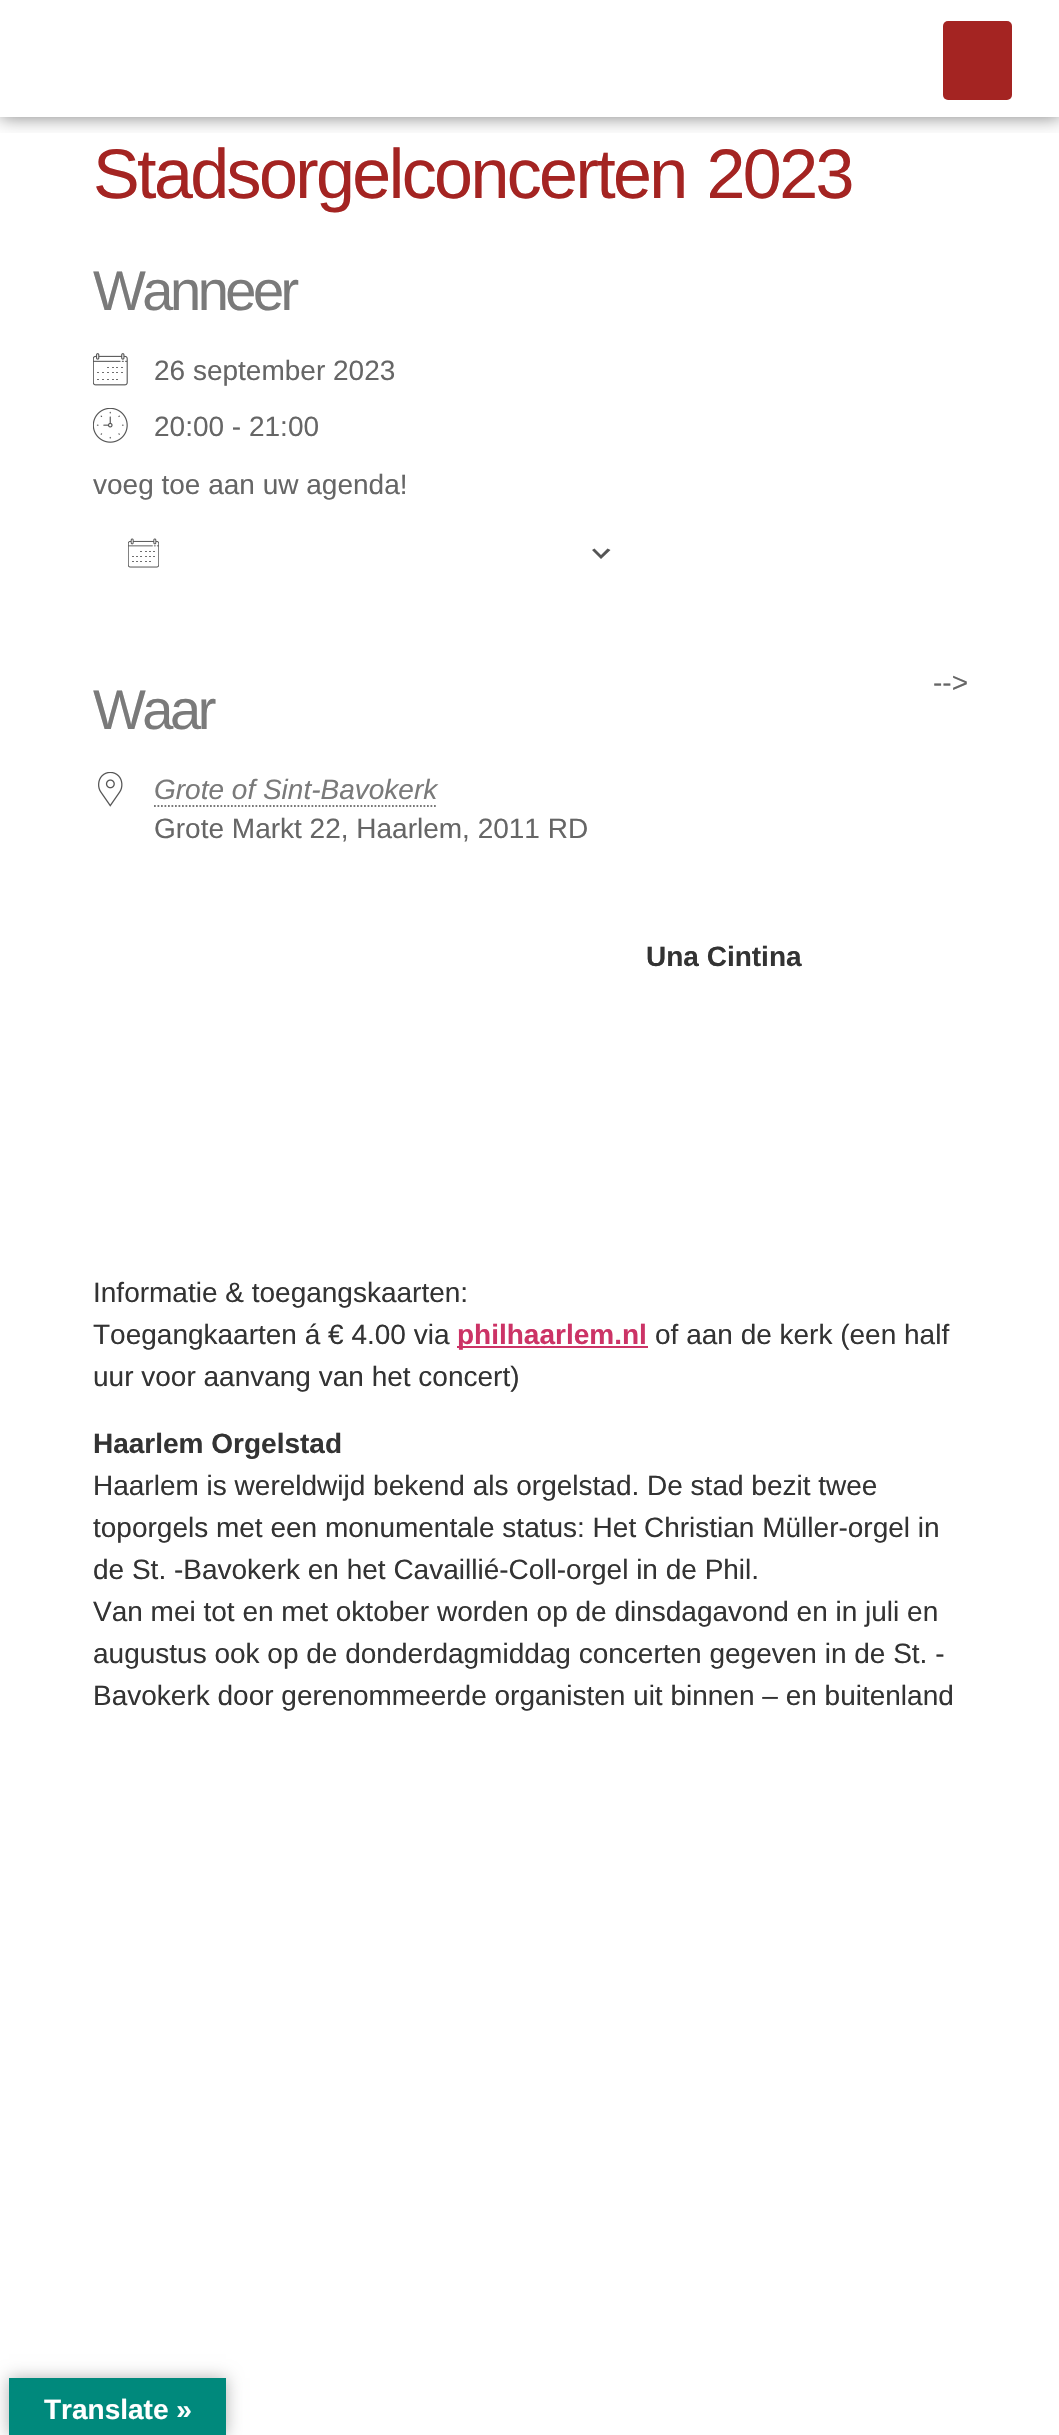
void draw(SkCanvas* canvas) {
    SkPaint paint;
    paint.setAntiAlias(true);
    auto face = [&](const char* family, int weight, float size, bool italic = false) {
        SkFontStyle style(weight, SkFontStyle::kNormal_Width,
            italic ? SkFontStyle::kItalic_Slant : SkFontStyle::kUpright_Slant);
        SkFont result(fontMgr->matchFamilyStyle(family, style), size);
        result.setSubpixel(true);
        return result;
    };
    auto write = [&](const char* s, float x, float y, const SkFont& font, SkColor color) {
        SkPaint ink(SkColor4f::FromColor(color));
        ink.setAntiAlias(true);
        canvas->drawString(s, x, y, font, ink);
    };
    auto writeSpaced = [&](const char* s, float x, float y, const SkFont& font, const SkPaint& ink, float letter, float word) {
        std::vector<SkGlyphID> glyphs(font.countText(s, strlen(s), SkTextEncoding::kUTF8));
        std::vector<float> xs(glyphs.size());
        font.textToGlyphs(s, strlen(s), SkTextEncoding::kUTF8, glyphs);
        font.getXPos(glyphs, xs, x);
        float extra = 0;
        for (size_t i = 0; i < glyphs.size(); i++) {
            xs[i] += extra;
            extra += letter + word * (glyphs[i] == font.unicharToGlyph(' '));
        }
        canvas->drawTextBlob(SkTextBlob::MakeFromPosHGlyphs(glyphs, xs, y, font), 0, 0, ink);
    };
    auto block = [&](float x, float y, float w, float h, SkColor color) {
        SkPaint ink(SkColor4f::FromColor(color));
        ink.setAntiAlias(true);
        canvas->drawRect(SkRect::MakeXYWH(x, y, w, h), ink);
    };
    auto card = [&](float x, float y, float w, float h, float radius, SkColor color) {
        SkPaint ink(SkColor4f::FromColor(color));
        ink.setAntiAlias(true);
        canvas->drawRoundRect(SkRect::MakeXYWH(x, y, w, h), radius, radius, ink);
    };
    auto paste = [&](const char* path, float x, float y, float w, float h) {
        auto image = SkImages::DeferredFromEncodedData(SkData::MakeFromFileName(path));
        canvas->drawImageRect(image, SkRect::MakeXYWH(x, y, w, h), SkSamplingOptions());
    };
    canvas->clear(SK_ColorWHITE);
    canvas->save();
    canvas->clipRect(SkRect::MakeXYWH(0, 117, 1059, 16));
    paint.setColor(SkColorSetARGB(128, 0, 0, 0));
    paint.setMaskFilter(SkMaskFilter::MakeBlur(kNormal_SkBlurStyle, 9));
    canvas->drawRect(SkRect::MakeXYWH(0, 0, 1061, 117), paint);
    paint.setMaskFilter(nullptr);
    canvas->restore();
    card(943, 21, 69, 79, 5, SkColorSetRGB(164, 36, 34));
    auto kFont1 = face("Liberation Sans", 400, 70);
    paint.setColor(SkColorSetRGB(164, 36, 34));
    writeSpaced("Stadsorgelconcerten 2023", 93, 198, kFont1, paint, -2.6f, 4);
    auto kFont2 = face("Liberation Sans", 400, 56);
    paint.setColor(SkColorSetRGB(122, 122, 122));
    writeSpaced("Wanneer", 93, 310, kFont2, paint, -3.5f, 0);
    paste("pic1.png", 93, 353, 35, 33);
    auto kFont3 = face("Liberation Sans", 400, 28);
    write("26 september 2023", 154, 380, kFont3, SkColorSetRGB(102, 102, 102));
    paste("pic2.png", 93, 408, 35, 35);
    write("20:00 - 21:00", 154, 436, kFont3, SkColorSetRGB(102, 102, 102));
    write("voeg toe aan uw agenda!", 93, 494, kFont3, SkColorSetRGB(102, 102, 102));
    paint.setColor(SkColorSetRGB(85, 85, 85));
    canvas->drawPath(SkPathBuilder().moveTo(594.5f, 548.5f).lineTo(601, 555).lineTo(607.5f, 548.5f).lineTo(610.5f, 550).lineTo(601, 559).lineTo(592, 550).close().detach(), paint);
    paste("pic3.png", 128, 538, 31, 30);
    write("-->", 933, 692, kFont3, SkColorSetRGB(102, 102, 102));
    paint.setColor(SkColorSetRGB(122, 122, 122));
    writeSpaced("Waar", 93, 729, kFont2, paint, -3.5f, 0);
    paste("pic4.png", 98, 772, 25, 35);
    auto kFont4 = face("Liberation Sans", 400, 28, true);
    write("Grote of Sint-Bavokerk", 154, 799, kFont4, SkColorSetRGB(122, 122, 122));
    paint.setStyle(SkPaint::kStroke_Style);
    paint.setStrokeWidth(1.8f);
    paint.setColor(SkColorSetRGB(120, 120, 120));
    paint.setPathEffect(SkDashPathEffect::Make({{1.75f, 1.75f}}, 0));
    canvas->drawPath(SkPathBuilder().moveTo(154, 806).lineTo(437, 806).detach(), paint);
    paint.setPathEffect(nullptr);
    write("Grote Markt 22, Haarlem, 2011 RD", 154, 838, kFont3, SkColorSetRGB(102, 102, 102));
    auto kFont5 = face("Liberation Sans", 700, 28);
    write("Una Cintina", 646, 966, kFont5, SkColorSetRGB(51, 51, 51));
    write("Informatie & toegangskaarten:", 93, 1302, kFont3, SkColorSetRGB(51, 51, 51));
    write("Toegangkaarten á € 4.00 via", 93, 1344, kFont3, SkColorSetRGB(51, 51, 51));
    block(457, 1346, 191, 2, SkColorSetRGB(204, 51, 102));
    write("philhaarlem.nl", 457, 1344, kFont5, SkColorSetRGB(204, 51, 102));
    write("of aan de kerk (een half", 655, 1344, kFont3, SkColorSetRGB(51, 51, 51));
    write("uur voor aanvang van het concert)", 93, 1386, kFont3, SkColorSetRGB(51, 51, 51));
    write("Haarlem Orgelstad", 93, 1453, kFont5, SkColorSetRGB(51, 51, 51));
    write("Haarlem is wereldwijd bekend als orgelstad. De stad bezit twee", 93, 1495, kFont3, SkColorSetRGB(51, 51, 51));
    write("toporgels met een monumentale status: Het Christian Müller-orgel in", 93, 1537, kFont3, SkColorSetRGB(51, 51, 51));
    write("de St. -Bavokerk en het Cavaillié-Coll-orgel in de Phil.", 93, 1579, kFont3, SkColorSetRGB(51, 51, 51));
    write("Van mei tot en met oktober worden op de dinsdagavond en in juli en", 93, 1621, kFont3, SkColorSetRGB(51, 51, 51));
    write("augustus ook op de donderdagmiddag concerten gegeven in de St. -", 93, 1663, kFont3, SkColorSetRGB(51, 51, 51));
    write("Bavokerk door gerenommeerde organisten uit binnen – en buitenland", 93, 1705, kFont3, SkColorSetRGB(51, 51, 51));
    paint.setStyle(SkPaint::kFill_Style);
    paint.setColor(SkColorSetARGB(77, 0, 0, 0));
    paint.setMaskFilter(SkMaskFilter::MakeBlur(kNormal_SkBlurStyle, 8));
    canvas->drawRect(SkRect::MakeXYWH(9, 2378, 217, 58), paint);
    paint.setMaskFilter(nullptr);
    block(9, 2378, 217, 57, SkColorSetRGB(0, 137, 124));
    write("Translate »", 44, 2419, kFont5, SK_ColorWHITE);
}
